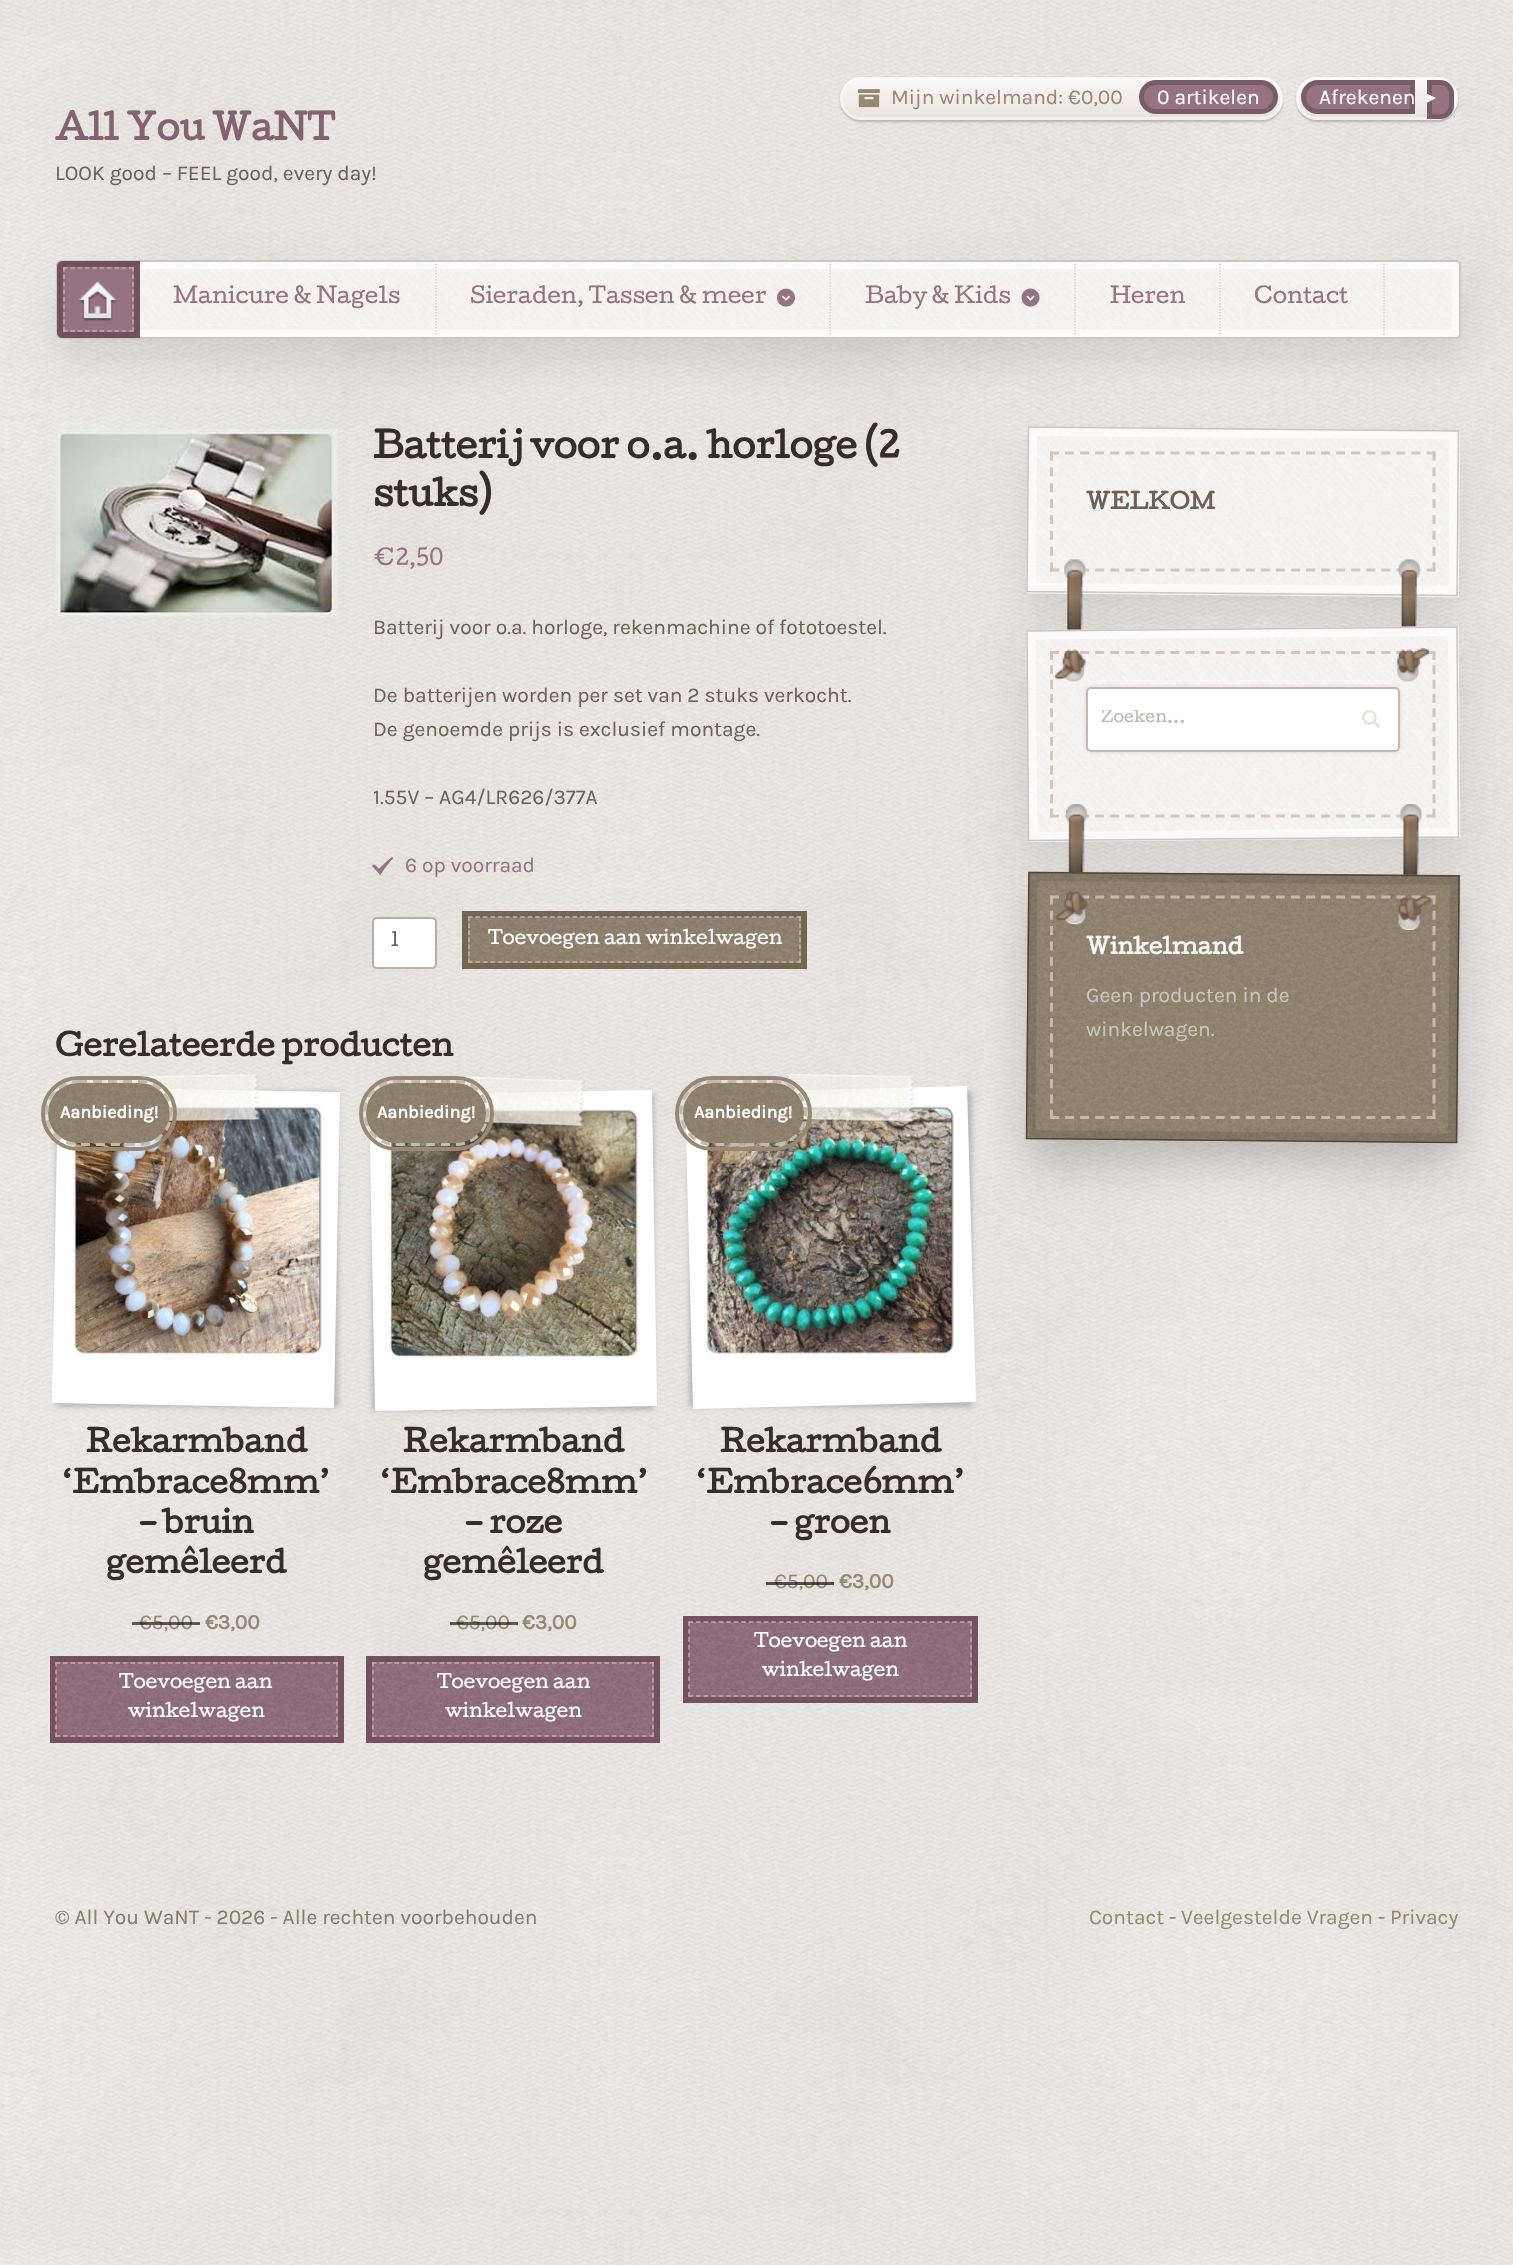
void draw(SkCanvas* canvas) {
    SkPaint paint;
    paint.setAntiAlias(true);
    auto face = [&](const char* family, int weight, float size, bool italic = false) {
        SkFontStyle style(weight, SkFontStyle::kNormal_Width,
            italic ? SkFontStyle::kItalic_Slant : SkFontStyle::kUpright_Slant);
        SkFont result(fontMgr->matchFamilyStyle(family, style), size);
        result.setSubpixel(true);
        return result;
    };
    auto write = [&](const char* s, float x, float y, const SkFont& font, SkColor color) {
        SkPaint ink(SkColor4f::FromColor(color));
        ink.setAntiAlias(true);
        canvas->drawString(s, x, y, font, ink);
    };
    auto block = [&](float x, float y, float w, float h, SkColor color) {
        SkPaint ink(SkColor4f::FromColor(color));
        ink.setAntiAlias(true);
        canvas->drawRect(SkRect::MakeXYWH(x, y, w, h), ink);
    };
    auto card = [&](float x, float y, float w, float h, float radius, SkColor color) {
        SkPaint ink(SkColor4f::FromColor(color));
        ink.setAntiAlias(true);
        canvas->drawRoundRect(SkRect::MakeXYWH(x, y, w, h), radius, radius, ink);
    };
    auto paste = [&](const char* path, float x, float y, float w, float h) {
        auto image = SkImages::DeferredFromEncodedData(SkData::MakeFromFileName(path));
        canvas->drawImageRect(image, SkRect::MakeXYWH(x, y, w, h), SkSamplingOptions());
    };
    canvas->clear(SK_ColorWHITE);
    paste("pic1.png", 0, 0, 1513, 2265);
    paste("pic2.png", 0, 0, 1513, 2265);
    paint.setColor(SkColorSetARGB(51, 0, 0, 0));
    paint.setMaskFilter(SkMaskFilter::MakeBlur(kNormal_SkBlurStyle, 1));
    canvas->drawRoundRect(SkRect::MakeXYWH(840, 78, 443, 44), 21, 21, paint);
    paint.setMaskFilter(nullptr);
    {
        const SkColor colors[] = {SkColorSetRGB(252, 251, 250), SkColorSetRGB(230, 225, 221)};
        const float stops[] = {0, 1};
        const SkPoint ends[] = {{1061, 76}, {1061, 120}};
        paint.setShader(SkGradientShader::MakeLinear(ends, colors, stops, 2, SkTileMode::kClamp));
        paint.setAlpha(255);
    }
    canvas->drawRoundRect(SkRect::MakeXYWH(840, 77, 443, 43), 21, 21, paint);
    paint.setStyle(SkPaint::kStroke_Style);
    paint.setStrokeWidth(3);
    paint.setShader(nullptr);
    paint.setColor(SkColorSetARGB(128, 255, 255, 255));
    canvas->drawRoundRect(SkRect::MakeXYWH(841.5f, 78.5f, 440, 40), 19.5f, 19.5f, paint);
    paste("pic3.png", 858, 89, 22, 19);
    auto kFont1 = face("Karla", 400, 21);
    write("Mijn winkelmand: €0,00", 891, 104, kFont1, SkColorSetRGB(150, 136, 115));
    paint.setStyle(SkPaint::kFill_Style);
    paint.setColor(SkColorSetRGB(150, 115, 129));
    canvas->drawRoundRect(SkRect::MakeXYWH(1141.5f, 82.5f, 134, 29), 14.5f, 14.5f, paint);
    paint.setStyle(SkPaint::kStroke_Style);
    paint.setStrokeWidth(5);
    paint.setColor(SkColorSetRGB(122, 92, 104));
    canvas->drawRoundRect(SkRect::MakeXYWH(1141.5f, 82.5f, 134, 29), 14.5f, 14.5f, paint);
    write("0 artikelen", 1157, 104, kFont1, SK_ColorWHITE);
    paint.setStyle(SkPaint::kFill_Style);
    paint.setColor(SkColorSetARGB(51, 0, 0, 0));
    paint.setMaskFilter(SkMaskFilter::MakeBlur(kNormal_SkBlurStyle, 1));
    canvas->drawRoundRect(SkRect::MakeXYWH(1296, 78, 162, 44), 21, 21, paint);
    paint.setMaskFilter(nullptr);
    {
        const SkColor colors[] = {SkColorSetRGB(252, 251, 250), SkColorSetRGB(230, 225, 221)};
        const float stops[] = {0, 1};
        const SkPoint ends[] = {{1377, 76}, {1377, 120}};
        paint.setShader(SkGradientShader::MakeLinear(ends, colors, stops, 2, SkTileMode::kClamp));
        paint.setAlpha(255);
    }
    canvas->drawRoundRect(SkRect::MakeXYWH(1296, 77, 162, 43), 21, 21, paint);
    paint.setStyle(SkPaint::kStroke_Style);
    paint.setStrokeWidth(3);
    paint.setShader(nullptr);
    paint.setColor(SkColorSetARGB(128, 255, 255, 255));
    canvas->drawRoundRect(SkRect::MakeXYWH(1297.5f, 78.5f, 159, 40), 19.5f, 19.5f, paint);
    paint.setStyle(SkPaint::kFill_Style);
    paint.setColor(SkColorSetRGB(150, 115, 129));
    canvas->drawPath(SkPathBuilder().moveTo(1318, 82.5f).lineTo(1412.5f, 82.5f).lineTo(1412.5f, 111.5f).lineTo(1318, 111.5f).cubicTo(1310, 111.5f, 1303.5f, 105, 1303.5f, 97).cubicTo(1303.5f, 89, 1310, 82.5f, 1318, 82.5f).close().detach(), paint);
    paint.setStyle(SkPaint::kStroke_Style);
    paint.setStrokeWidth(5);
    paint.setColor(SkColorSetRGB(122, 92, 104));
    canvas->drawPath(SkPathBuilder().moveTo(1318, 82.5f).lineTo(1412.5f, 82.5f).lineTo(1412.5f, 111.5f).lineTo(1318, 111.5f).cubicTo(1310, 111.5f, 1303.5f, 105, 1303.5f, 97).cubicTo(1303.5f, 89, 1310, 82.5f, 1318, 82.5f).close().detach(), paint);
    paint.setStyle(SkPaint::kFill_Style);
    paint.setColor(SkColorSetRGB(150, 115, 129));
    canvas->drawPath(SkPathBuilder().moveTo(1429.5f, 82.5f).lineTo(1440.5f, 82.5f).cubicTo(1446.5f, 82.5f, 1451.5f, 87.5f, 1451.5f, 93.5f).lineTo(1451.5f, 105.5f).cubicTo(1451.5f, 111.5f, 1446.5f, 116.5f, 1440.5f, 116.5f).lineTo(1429.5f, 116.5f).close().detach(), paint);
    paint.setStyle(SkPaint::kStroke_Style);
    paint.setColor(SkColorSetRGB(122, 92, 104));
    canvas->drawPath(SkPathBuilder().moveTo(1429.5f, 82.5f).lineTo(1440.5f, 82.5f).cubicTo(1446.5f, 82.5f, 1451.5f, 87.5f, 1451.5f, 93.5f).lineTo(1451.5f, 105.5f).cubicTo(1451.5f, 111.5f, 1446.5f, 116.5f, 1440.5f, 116.5f).lineTo(1429.5f, 116.5f).close().detach(), paint);
    write("Afrekenen", 1319, 104, kFont1, SK_ColorWHITE);
    paint.setStyle(SkPaint::kFill_Style);
    paint.setColor(SK_ColorWHITE);
    canvas->drawPath(SkPathBuilder().moveTo(1436, 98).lineTo(1426.5f, 103).lineTo(1426.5f, 93.5f).close().detach(), paint);
    auto kFont2 = face("Cutive", 700, 34);
    write("All You WaNT", 55, 140, kFont2, SkColorSetRGB(133, 98, 112));
    write("LOOK good – FEEL good, every day!", 55, 180, kFont1, SkColorSetRGB(108, 97, 88));
    paint.setColor(SkColorSetARGB(26, 0, 0, 0));
    paint.setMaskFilter(SkMaskFilter::MakeBlur(kNormal_SkBlurStyle, 21));
    canvas->drawRoundRect(SkRect::MakeXYWH(56, 281, 1405, 79), 5, 5, paint);
    paint.setMaskFilter(nullptr);
    paste("pic4.png", 57, 261, 1402, 76);
    paint.setStyle(SkPaint::kStroke_Style);
    paint.setStrokeWidth(8);
    paint.setColor(SkColorSetARGB(153, 255, 255, 255));
    canvas->drawPath(SkPathBuilder().moveTo(61, 265).lineTo(1455.5f, 265).lineTo(1455.5f, 333.5f).lineTo(61, 333.5f).close().detach(), paint);
    paint.setStrokeWidth(2);
    paint.setColor(SkColorSetRGB(204, 199, 195));
    canvas->drawRoundRect(SkRect::MakeXYWH(57, 261, 1403, 77), 4, 4, paint);
    paint.setStrokeWidth(6);
    paint.setColor(SkColorSetRGB(116, 81, 95));
    canvas->drawPath(SkPathBuilder().moveTo(62, 264).lineTo(137, 264).lineTo(137, 335).lineTo(62, 335).cubicTo(61, 335, 60, 334, 60, 333).lineTo(60, 266).cubicTo(60, 265, 61, 264, 62, 264).close().detach(), paint);
    block(63, 267, 71, 65, SkColorSetRGB(150, 115, 129));
    paste("pic5.png", 78, 281, 39, 41);
    paint.setStrokeWidth(1.5f);
    paint.setColor(SkColorSetRGB(201, 166, 180));
    paint.setPathEffect(SkDashPathEffect::Make({{4.5f, 2.83f}}, 0));
    canvas->drawPath(SkPathBuilder().moveTo(63, 268).lineTo(133.5f, 268).detach(), paint);
    paint.setPathEffect(nullptr);
    paint.setPathEffect(SkDashPathEffect::Make({{4.5f, 3}}, 0));
    canvas->drawPath(SkPathBuilder().moveTo(133, 267).lineTo(133, 331.5f).detach(), paint);
    paint.setPathEffect(nullptr);
    paint.setPathEffect(SkDashPathEffect::Make({{4.5f, 2.83f}}, 0));
    canvas->drawPath(SkPathBuilder().moveTo(63, 331).lineTo(133.5f, 331).detach(), paint);
    paint.setPathEffect(nullptr);
    paint.setPathEffect(SkDashPathEffect::Make({{4.5f, 3}}, 0));
    canvas->drawPath(SkPathBuilder().moveTo(64, 267).lineTo(64, 331.5f).detach(), paint);
    paint.setPathEffect(nullptr);
    paint.setColor(SkColorSetRGB(219, 212, 206));
    paint.setPathEffect(SkDashPathEffect::Make({{1.5f, 1.5f}}, 0));
    canvas->drawPath(SkPathBuilder().moveTo(436, 261).lineTo(436, 336).detach(), paint);
    paint.setPathEffect(nullptr);
    auto kFont3 = face("Cutive", 400, 21);
    write("Manicure & Nagels", 173, 303, kFont3, SkColorSetRGB(150, 115, 129));
    paint.setPathEffect(SkDashPathEffect::Make({{1.5f, 1.5f}}, 0));
    canvas->drawPath(SkPathBuilder().moveTo(830, 261).lineTo(830, 336).detach(), paint);
    paint.setPathEffect(nullptr);
    write("Sieraden, Tassen & meer", 470, 303, kFont3, SkColorSetRGB(150, 115, 129));
    paste("pic6.png", 777, 288, 18, 19);
    paint.setPathEffect(SkDashPathEffect::Make({{1.5f, 1.5f}}, 0));
    canvas->drawPath(SkPathBuilder().moveTo(1075, 261).lineTo(1075, 336).detach(), paint);
    paint.setPathEffect(nullptr);
    write("Baby & Kids", 865, 303, kFont3, SkColorSetRGB(150, 115, 129));
    paste("pic7.png", 1021, 288, 19, 19);
    paint.setPathEffect(SkDashPathEffect::Make({{1.5f, 1.5f}}, 0));
    canvas->drawPath(SkPathBuilder().moveTo(1220, 261).lineTo(1220, 336).detach(), paint);
    paint.setPathEffect(nullptr);
    write("Heren", 1110, 303, kFont3, SkColorSetRGB(150, 115, 129));
    paint.setPathEffect(SkDashPathEffect::Make({{1.5f, 1.5f}}, 0));
    canvas->drawPath(SkPathBuilder().moveTo(1384, 261).lineTo(1384, 336).detach(), paint);
    paint.setPathEffect(nullptr);
    write("Contact", 1254, 303, kFont3, SkColorSetRGB(150, 115, 129));
    paste("pic8.png", 55, 429, 283, 188);
    write("Batterij voor o.a. horloge (2", 373, 458, kFont2, SkColorSetRGB(52, 46, 42));
    write("stuks)", 373, 506, kFont2, SkColorSetRGB(52, 46, 42));
    write("€2,50", 373, 565, kFont3, SkColorSetRGB(150, 115, 129));
    write("Batterij voor o.a. horloge, rekenmachine of fototoestel.", 373, 634, kFont1, SkColorSetRGB(108, 97, 88));
    write("De batterijen worden per set van 2 stuks verkocht.", 373, 702, kFont1, SkColorSetRGB(108, 97, 88));
    write("De genoemde prijs is exclusief montage.", 373, 736, kFont1, SkColorSetRGB(108, 97, 88));
    write("1.55V – AG4/LR626/377A", 373, 804, kFont1, SkColorSetRGB(108, 97, 88));
    paste("pic9.png", 372, 857, 22, 18);
    write("6 op voorraad", 405, 872, kFont1, SkColorSetRGB(150, 115, 129));
    paint.setStyle(SkPaint::kFill_Style);
    paint.setColor(SkColorSetRGB(229, 225, 222));
    paint.setMaskFilter(SkMaskFilter::MakeBlur(kNormal_SkBlurStyle, 2));
    canvas->drawRoundRect(SkRect::MakeXYWH(372, 917, 65, 52), 5, 5, paint);
    paint.setMaskFilter(nullptr);
    paint.setColor(SK_ColorWHITE);
    canvas->drawRoundRect(SkRect::MakeXYWH(373, 918, 63, 50), 4, 4, paint);
    paint.setStyle(SkPaint::kStroke_Style);
    paint.setStrokeWidth(2);
    paint.setColor(SkColorSetRGB(183, 174, 166));
    canvas->drawRoundRect(SkRect::MakeXYWH(373, 918, 63, 50), 4, 4, paint);
    auto kFont4 = face("Cutive", 400, 18);
    write("1", 390, 946, kFont4, SkColorSetRGB(108, 97, 88));
    paint.setStrokeWidth(6);
    paint.setColor(SkColorSetRGB(116, 102, 81));
    canvas->drawRect(SkRect::MakeXYWH(465, 914, 339, 52), paint);
    block(468, 917, 333, 46, SkColorSetRGB(150, 136, 115));
    paste("pic10.png", 468, 916, 333, 47);
    paint.setStrokeWidth(1.5f);
    paint.setColor(SkColorSetRGB(187, 184, 180));
    paint.setPathEffect(SkDashPathEffect::Make({{4.5f, 2.97f}}, 0));
    canvas->drawPath(SkPathBuilder().moveTo(468, 917).lineTo(801, 917).detach(), paint);
    paint.setPathEffect(nullptr);
    paint.setPathEffect(SkDashPathEffect::Make({{4.5f, 2.5f}}, 0));
    canvas->drawPath(SkPathBuilder().moveTo(800, 916.5f).lineTo(800, 963).detach(), paint);
    paint.setPathEffect(nullptr);
    paint.setPathEffect(SkDashPathEffect::Make({{4.5f, 2.97f}}, 0));
    canvas->drawPath(SkPathBuilder().moveTo(468, 962).lineTo(801, 962).detach(), paint);
    paint.setPathEffect(nullptr);
    paint.setPathEffect(SkDashPathEffect::Make({{4.5f, 2.5f}}, 0));
    canvas->drawPath(SkPathBuilder().moveTo(469, 916.5f).lineTo(469, 963).detach(), paint);
    paint.setPathEffect(nullptr);
    write("Toevoegen aan winkelwagen", 488, 944, kFont4, SK_ColorWHITE);
    auto kFont5 = face("Cutive", 700, 29.1f);
    write("Gerelateerde producten", 55, 1056, kFont5, SkColorSetRGB(52, 46, 42));
    paint.setStyle(SkPaint::kFill_Style);
    paint.setColor(SkColorSetARGB(51, 0, 0, 0));
    paint.setMaskFilter(SkMaskFilter::MakeBlur(kNormal_SkBlurStyle, 2.5f));
    canvas->drawRect(SkRect::MakeXYWH(56, 1091, 282, 316), paint);
    paint.setMaskFilter(nullptr);
    paint.setColor(SK_ColorWHITE);
    canvas->drawPath(SkPathBuilder().moveTo(58, 1087).lineTo(340, 1092).lineTo(334, 1408).lineTo(52, 1403).close().detach(), paint);
    paste("pic12.png", 69, 1103, 256, 253);
    paste("pic11.png", 132, 1074, 128, 50);
    paint.setStyle(SkPaint::kStroke_Style);
    paint.setStrokeWidth(4);
    paint.setColor(SkColorSetRGB(150, 136, 115));
    canvas->drawRoundRect(SkRect::MakeXYWH(43, 1078, 132, 71), 35.5f, 35.5f, paint);
    card(48, 1083, 122, 60, 30, SkColorSetRGB(150, 136, 115));
    paste("pic13.png", 48, 1083, 121, 60);
    paint.setStrokeWidth(3);
    paint.setColor(SkColorSetRGB(194, 186, 173));
    paint.setPathEffect(SkDashPathEffect::Make({{9, 6}}, 0));
    canvas->drawPath(SkPathBuilder().moveTo(78, 1081.5f).lineTo(139.5f, 1081.5f).cubicTo(157, 1081.5f, 171, 1095.5f, 171, 1113).cubicTo(171, 1130.5f, 157, 1144.5f, 139.5f, 1144.5f).lineTo(78, 1144.5f).cubicTo(60.5f, 1144.5f, 46.5f, 1130.5f, 46.5f, 1113).cubicTo(46.5f, 1095.5f, 60.5f, 1081.5f, 78, 1081.5f).close().detach(), paint);
    paint.setPathEffect(nullptr);
    auto kFont6 = face("Karla", 700, 18);
    write("Aanbieding!", 60, 1118, kFont6, SK_ColorWHITE);
    write("Rekarmband", 86, 1452, kFont5, SkColorSetRGB(52, 46, 42));
    write("‘Embrace8mm’", 62, 1493, kFont5, SkColorSetRGB(52, 46, 42));
    write("– bruin", 139, 1533, kFont5, SkColorSetRGB(52, 46, 42));
    write("gemêleerd", 106, 1573, kFont5, SkColorSetRGB(52, 46, 42));
    write("€5,00", 139, 1629, kFont1, SkColorSetRGB(150, 136, 115));
    block(132, 1622, 68, 3, SkColorSetARGB(156, 0, 0, 0));
    auto kFont7 = face("Karla", 700, 21);
    write("€3,00", 205, 1629, kFont7, SkColorSetRGB(150, 136, 115));
    paint.setStrokeWidth(6);
    paint.setColor(SkColorSetRGB(116, 81, 95));
    canvas->drawRect(SkRect::MakeXYWH(53, 1659, 288, 81), paint);
    block(56, 1662, 282, 75, SkColorSetRGB(150, 115, 129));
    paste("pic14.png", 55, 1662, 283, 75);
    paint.setStrokeWidth(1.5f);
    paint.setColor(SkColorSetRGB(201, 166, 180));
    paint.setPathEffect(SkDashPathEffect::Make({{4.5f, 3}}, 0));
    canvas->drawPath(SkPathBuilder().moveTo(55.5f, 1663).lineTo(337.5f, 1663).detach(), paint);
    paint.setPathEffect(nullptr);
    paint.setPathEffect(SkDashPathEffect::Make({{4.5f, 3.33f}}, 0));
    canvas->drawPath(SkPathBuilder().moveTo(337, 1662).lineTo(337, 1737).detach(), paint);
    paint.setPathEffect(nullptr);
    paint.setPathEffect(SkDashPathEffect::Make({{4.5f, 3}}, 0));
    canvas->drawPath(SkPathBuilder().moveTo(55.5f, 1736).lineTo(337.5f, 1736).detach(), paint);
    paint.setPathEffect(nullptr);
    paint.setPathEffect(SkDashPathEffect::Make({{4.5f, 3.33f}}, 0));
    canvas->drawPath(SkPathBuilder().moveTo(56, 1662).lineTo(56, 1737).detach(), paint);
    paint.setPathEffect(nullptr);
    write("Toevoegen aan", 119, 1688, kFont4, SK_ColorWHITE);
    write("winkelwagen", 128, 1717, kFont4, SK_ColorWHITE);
    paint.setStyle(SkPaint::kFill_Style);
    paint.setColor(SkColorSetARGB(51, 0, 0, 0));
    paint.setMaskFilter(SkMaskFilter::MakeBlur(kNormal_SkBlurStyle, 2.5f));
    canvas->drawRect(SkRect::MakeXYWH(372, 1094, 282, 316), paint);
    paint.setMaskFilter(nullptr);
    paint.setColor(SK_ColorWHITE);
    canvas->drawPath(SkPathBuilder().moveTo(369, 1095).lineTo(652, 1090).lineTo(657, 1406).lineTo(375, 1411).close().detach(), paint);
    paste("pic16.png", 385, 1106, 254, 253);
    paste("pic15.png", 455, 1076, 130, 53);
    paint.setStyle(SkPaint::kStroke_Style);
    paint.setStrokeWidth(4);
    paint.setColor(SkColorSetRGB(150, 136, 115));
    canvas->drawRoundRect(SkRect::MakeXYWH(361, 1078, 131, 71), 35.5f, 35.5f, paint);
    card(366, 1083, 120, 60, 30, SkColorSetRGB(150, 136, 115));
    paste("pic17.png", 366, 1083, 120, 60);
    paint.setStrokeWidth(3);
    paint.setColor(SkColorSetRGB(194, 186, 173));
    paint.setPathEffect(SkDashPathEffect::Make({{9, 6}}, 0));
    canvas->drawPath(SkPathBuilder().moveTo(396, 1081.5f).lineTo(456, 1081.5f).cubicTo(473.5f, 1081.5f, 487.5f, 1095.5f, 487.5f, 1113).cubicTo(487.5f, 1130.5f, 473.5f, 1144.5f, 456, 1144.5f).lineTo(396, 1144.5f).cubicTo(378.5f, 1144.5f, 364.5f, 1130.5f, 364.5f, 1113).cubicTo(364.5f, 1095.5f, 378.5f, 1081.5f, 396, 1081.5f).close().detach(), paint);
    paint.setPathEffect(nullptr);
    write("Aanbieding!", 377, 1118, kFont6, SK_ColorWHITE);
    write("Rekarmband", 403, 1452, kFont5, SkColorSetRGB(52, 46, 42));
    write("‘Embrace8mm’", 380, 1493, kFont5, SkColorSetRGB(52, 46, 42));
    write("– roze", 465, 1533, kFont5, SkColorSetRGB(52, 46, 42));
    write("gemêleerd", 423, 1573, kFont5, SkColorSetRGB(52, 46, 42));
    write("€5,00", 456, 1629, kFont1, SkColorSetRGB(150, 136, 115));
    block(450, 1622, 68, 3, SkColorSetARGB(156, 0, 0, 0));
    write("€3,00", 522, 1629, kFont7, SkColorSetRGB(150, 136, 115));
    paint.setStrokeWidth(6);
    paint.setColor(SkColorSetRGB(116, 81, 95));
    canvas->drawRect(SkRect::MakeXYWH(369, 1659, 288, 81), paint);
    block(372, 1662, 282, 75, SkColorSetRGB(150, 115, 129));
    paste("pic18.png", 372, 1662, 282, 75);
    paint.setStrokeWidth(1.5f);
    paint.setColor(SkColorSetRGB(201, 166, 180));
    paint.setPathEffect(SkDashPathEffect::Make({{4.5f, 3}}, 0));
    canvas->drawPath(SkPathBuilder().moveTo(372, 1663).lineTo(654, 1663).detach(), paint);
    paint.setPathEffect(nullptr);
    paint.setPathEffect(SkDashPathEffect::Make({{4.5f, 3.33f}}, 0));
    canvas->drawPath(SkPathBuilder().moveTo(653, 1662).lineTo(653, 1737).detach(), paint);
    paint.setPathEffect(nullptr);
    paint.setPathEffect(SkDashPathEffect::Make({{4.5f, 3}}, 0));
    canvas->drawPath(SkPathBuilder().moveTo(372, 1736).lineTo(654, 1736).detach(), paint);
    paint.setPathEffect(nullptr);
    paint.setPathEffect(SkDashPathEffect::Make({{4.5f, 3.33f}}, 0));
    canvas->drawPath(SkPathBuilder().moveTo(373, 1662).lineTo(373, 1737).detach(), paint);
    paint.setPathEffect(nullptr);
    write("Toevoegen aan", 437, 1688, kFont4, SK_ColorWHITE);
    write("winkelwagen", 445, 1717, kFont4, SK_ColorWHITE);
    paint.setStyle(SkPaint::kFill_Style);
    paint.setColor(SkColorSetARGB(51, 0, 0, 0));
    paint.setMaskFilter(SkMaskFilter::MakeBlur(kNormal_SkBlurStyle, 2.5f));
    canvas->drawRect(SkRect::MakeXYWH(689, 1091, 283, 316), paint);
    paint.setMaskFilter(nullptr);
    paint.setColor(SK_ColorWHITE);
    canvas->drawPath(SkPathBuilder().moveTo(685, 1093).lineTo(967, 1086).lineTo(976, 1402).lineTo(693, 1409).close().detach(), paint);
    paste("pic20.png", 702, 1102, 253, 254);
    paste("pic19.png", 784, 1073, 131, 51);
    paint.setStyle(SkPaint::kStroke_Style);
    paint.setStrokeWidth(4);
    paint.setColor(SkColorSetRGB(150, 136, 115));
    canvas->drawRoundRect(SkRect::MakeXYWH(677, 1078, 133, 71), 35.5f, 35.5f, paint);
    card(683, 1083, 121, 60, 30, SkColorSetRGB(150, 136, 115));
    paste("pic21.png", 683, 1083, 121, 60);
    paint.setStrokeWidth(3);
    paint.setColor(SkColorSetRGB(194, 186, 173));
    paint.setPathEffect(SkDashPathEffect::Make({{9, 6}}, 0));
    canvas->drawPath(SkPathBuilder().moveTo(712.5f, 1081.5f).lineTo(774, 1081.5f).cubicTo(791.5f, 1081.5f, 805.5f, 1095.5f, 805.5f, 1113).cubicTo(805.5f, 1130.5f, 791.5f, 1144.5f, 774, 1144.5f).lineTo(712.5f, 1144.5f).cubicTo(695, 1144.5f, 681, 1130.5f, 681, 1113).cubicTo(681, 1095.5f, 695, 1081.5f, 712.5f, 1081.5f).close().detach(), paint);
    paint.setPathEffect(nullptr);
    write("Aanbieding!", 694, 1118, kFont6, SK_ColorWHITE);
    write("Rekarmband", 720, 1452, kFont5, SkColorSetRGB(52, 46, 42));
    write("‘Embrace6mm’", 696, 1493, kFont5, SkColorSetRGB(52, 46, 42));
    write("– groen", 770, 1533, kFont5, SkColorSetRGB(52, 46, 42));
    write("€5,00", 774, 1588, kFont1, SkColorSetRGB(150, 136, 115));
    block(766, 1582, 68, 3, SkColorSetARGB(166, 0, 0, 0));
    write("€3,00", 839, 1588, kFont7, SkColorSetRGB(150, 136, 115));
    paint.setStrokeWidth(6);
    paint.setColor(SkColorSetRGB(116, 81, 95));
    canvas->drawRect(SkRect::MakeXYWH(686, 1619, 289, 81), paint);
    block(689, 1622, 283, 75, SkColorSetRGB(150, 115, 129));
    paste("pic22.png", 688, 1621, 284, 76);
    paint.setStrokeWidth(1.5f);
    paint.setColor(SkColorSetRGB(201, 166, 180));
    paint.setPathEffect(SkDashPathEffect::Make({{4.5f, 3.04f}}, 0));
    canvas->drawPath(SkPathBuilder().moveTo(688.5f, 1622).lineTo(972, 1622).detach(), paint);
    paint.setPathEffect(nullptr);
    paint.setPathEffect(SkDashPathEffect::Make({{4.5f, 3.33f}}, 0));
    canvas->drawPath(SkPathBuilder().moveTo(971, 1621.5f).lineTo(971, 1696.5f).detach(), paint);
    paint.setPathEffect(nullptr);
    paint.setPathEffect(SkDashPathEffect::Make({{4.5f, 3.04f}}, 0));
    canvas->drawPath(SkPathBuilder().moveTo(688.5f, 1696).lineTo(972, 1696).detach(), paint);
    paint.setPathEffect(nullptr);
    paint.setPathEffect(SkDashPathEffect::Make({{4.5f, 3.33f}}, 0));
    canvas->drawPath(SkPathBuilder().moveTo(689, 1621.5f).lineTo(689, 1696.5f).detach(), paint);
    paint.setPathEffect(nullptr);
    write("Toevoegen aan", 754, 1647, kFont4, SK_ColorWHITE);
    write("winkelwagen", 762, 1676, kFont4, SK_ColorWHITE);
    paint.setStyle(SkPaint::kFill_Style);
    paint.setColor(SkColorSetARGB(26, 0, 0, 0));
    paint.setMaskFilter(SkMaskFilter::MakeBlur(kNormal_SkBlurStyle, 21));
    canvas->drawRect(SkRect::MakeXYWH(1028, 450, 430, 165), paint);
    paint.setMaskFilter(nullptr);
    paint.setColor(SkColorSetRGB(230, 225, 221));
    canvas->drawPath(SkPathBuilder().moveTo(1028, 426).lineTo(1459, 430).lineTo(1458, 596).lineTo(1026, 592).close().detach(), paint);
    paste("pic23.png", 1026, 427, 435, 171);
    paint.setStyle(SkPaint::kStroke_Style);
    paint.setStrokeWidth(8);
    paint.setColor(SkColorSetARGB(153, 255, 255, 255));
    canvas->drawPath(SkPathBuilder().moveTo(1033, 432).lineTo(1453.5f, 435.5f).lineTo(1452.5f, 590.5f).lineTo(1032, 587).close().detach(), paint);
    paint.setStrokeWidth(1.5f);
    paint.setColor(SkColorSetRGB(204, 199, 195));
    canvas->drawPath(SkPathBuilder().moveTo(1028.5f, 427).lineTo(1458.5f, 431).lineTo(1457, 595.5f).lineTo(1027, 591.5f).close().detach(), paint);
    paint.setStrokeWidth(3);
    paint.setColor(SkColorSetRGB(208, 199, 192));
    paint.setPathEffect(SkDashPathEffect::Make({{9, 6.06f}}, 0));
    canvas->drawPath(SkPathBuilder().moveTo(1050, 453).lineTo(1435.5f, 453).detach(), paint);
    paint.setPathEffect(nullptr);
    paint.setPathEffect(SkDashPathEffect::Make({{9, 6.86f}}, 0));
    canvas->drawPath(SkPathBuilder().moveTo(1434, 451.5f).lineTo(1434, 571.5f).detach(), paint);
    paint.setPathEffect(nullptr);
    paint.setPathEffect(SkDashPathEffect::Make({{9, 6.06f}}, 0));
    canvas->drawPath(SkPathBuilder().moveTo(1050, 570).lineTo(1435.5f, 570).detach(), paint);
    paint.setPathEffect(nullptr);
    paint.setPathEffect(SkDashPathEffect::Make({{9, 6.86f}}, 0));
    canvas->drawPath(SkPathBuilder().moveTo(1051.5f, 451.5f).lineTo(1051.5f, 571.5f).detach(), paint);
    paint.setPathEffect(nullptr);
    auto kFont8 = face("Cutive", 700, 21);
    write("WELKOM", 1086, 509, kFont8, SkColorSetRGB(108, 97, 88));
    paste("pic24.png", 1064, 559, 356, 71);
    paint.setStyle(SkPaint::kFill_Style);
    paint.setColor(SkColorSetARGB(26, 0, 0, 0));
    paint.setMaskFilter(SkMaskFilter::MakeBlur(kNormal_SkBlurStyle, 21));
    canvas->drawRect(SkRect::MakeXYWH(1028, 650, 430, 211), paint);
    paint.setMaskFilter(nullptr);
    paint.setColor(SkColorSetRGB(230, 225, 221));
    canvas->drawPath(SkPathBuilder().moveTo(1026, 630).lineTo(1458, 626).lineTo(1459, 838).lineTo(1028, 841).close().detach(), paint);
    paste("pic25.png", 1026, 626, 435, 216);
    paint.setStyle(SkPaint::kStroke_Style);
    paint.setStrokeWidth(8);
    paint.setColor(SkColorSetARGB(153, 255, 255, 255));
    canvas->drawPath(SkPathBuilder().moveTo(1031.5f, 635.5f).lineTo(1452, 632).lineTo(1454, 832).lineTo(1033.5f, 836).close().detach(), paint);
    paint.setStrokeWidth(1.5f);
    paint.setColor(SkColorSetRGB(204, 199, 195));
    canvas->drawPath(SkPathBuilder().moveTo(1027, 631).lineTo(1457, 627).lineTo(1458.5f, 837).lineTo(1028.5f, 840.5f).close().detach(), paint);
    paint.setStrokeWidth(3);
    paint.setColor(SkColorSetRGB(208, 199, 192));
    paint.setPathEffect(SkDashPathEffect::Make({{9, 6.06f}}, 0));
    canvas->drawPath(SkPathBuilder().moveTo(1050, 652.5f).lineTo(1435.5f, 652.5f).detach(), paint);
    paint.setPathEffect(nullptr);
    paint.setStyle(SkPaint::kFill_Style);
    paint.setColor(SkColorSetRGB(216, 210, 202));
    paint.setMaskFilter(SkMaskFilter::MakeBlur(kNormal_SkBlurStyle, 2));
    canvas->drawRoundRect(SkRect::MakeXYWH(1086, 687, 314, 65), 5, 5, paint);
    paint.setMaskFilter(nullptr);
    paste("pic26.png", 1053, 648, 377, 35);
    paint.setStyle(SkPaint::kStroke_Style);
    paint.setColor(SkColorSetRGB(208, 199, 192));
    paint.setPathEffect(SkDashPathEffect::Make({{9, 5.32f}}, 0));
    canvas->drawPath(SkPathBuilder().moveTo(1434, 651).lineTo(1434, 817.5f).detach(), paint);
    paint.setPathEffect(nullptr);
    paint.setPathEffect(SkDashPathEffect::Make({{9, 6.06f}}, 0));
    canvas->drawPath(SkPathBuilder().moveTo(1050, 816).lineTo(1435.5f, 816).detach(), paint);
    paint.setPathEffect(nullptr);
    paint.setPathEffect(SkDashPathEffect::Make({{9, 5.32f}}, 0));
    canvas->drawPath(SkPathBuilder().moveTo(1051.5f, 651).lineTo(1051.5f, 817.5f).detach(), paint);
    paint.setPathEffect(nullptr);
    paint.setStyle(SkPaint::kFill_Style);
    paint.setColor(SK_ColorWHITE);
    canvas->drawRoundRect(SkRect::MakeXYWH(1087, 688, 312, 63), 4, 4, paint);
    paint.setStyle(SkPaint::kStroke_Style);
    paint.setStrokeWidth(2);
    paint.setColor(SkColorSetRGB(194, 186, 173));
    canvas->drawRoundRect(SkRect::MakeXYWH(1087, 688, 312, 63), 4, 4, paint);
    canvas->save();
    canvas->clipRect(SkRect::MakeXYWH(1101, 710, 257, 16));
    auto kFont9 = face("Cutive", 400, 15.5f);
    write("Zoeken...", 1101, 722, kFont9, SkColorSetRGB(193, 182, 173));
    canvas->restore();
    paste("pic27.png", 1362, 710, 18, 18);
    paste("pic28.png", 1065, 804, 357, 71);
    paint.setStyle(SkPaint::kFill_Style);
    paint.setColor(SkColorSetARGB(51, 0, 0, 0));
    paint.setMaskFilter(SkMaskFilter::MakeBlur(kNormal_SkBlurStyle, 21));
    canvas->drawRect(SkRect::MakeXYWH(1028, 894, 430, 269), paint);
    paint.setMaskFilter(nullptr);
    paint.setColor(SkColorSetRGB(150, 136, 115));
    canvas->drawPath(SkPathBuilder().moveTo(1028, 872).lineTo(1460, 875).lineTo(1457, 1143).lineTo(1026, 1139).close().detach(), paint);
    paste("pic29.png", 1026, 871, 435, 271);
    paint.setStyle(SkPaint::kStroke_Style);
    paint.setStrokeWidth(8);
    paint.setColor(SkColorSetARGB(26, 0, 0, 0));
    canvas->drawPath(SkPathBuilder().moveTo(1033.5f, 877).lineTo(1454, 881).lineTo(1452, 1137.5f).lineTo(1031.5f, 1134).close().detach(), paint);
    paint.setStrokeWidth(1.5f);
    paint.setColor(SkColorSetRGB(82, 68, 47));
    canvas->drawPath(SkPathBuilder().moveTo(1029, 872.5f).lineTo(1459, 876).lineTo(1456.5f, 1142.5f).lineTo(1026.5f, 1138.5f).close().detach(), paint);
    paint.setStrokeWidth(3);
    paint.setColor(SkColorSetRGB(194, 186, 173));
    paint.setPathEffect(SkDashPathEffect::Make({{9, 6.06f}}, 0));
    canvas->drawPath(SkPathBuilder().moveTo(1050, 897).lineTo(1435.5f, 897).detach(), paint);
    paint.setPathEffect(nullptr);
    paste("pic30.png", 1055, 891, 376, 39);
    paint.setPathEffect(SkDashPathEffect::Make({{9, 6.31f}}, 0));
    canvas->drawPath(SkPathBuilder().moveTo(1434, 895.5f).lineTo(1434, 1119).detach(), paint);
    paint.setPathEffect(nullptr);
    paint.setPathEffect(SkDashPathEffect::Make({{9, 6.06f}}, 0));
    canvas->drawPath(SkPathBuilder().moveTo(1050, 1117.5f).lineTo(1435.5f, 1117.5f).detach(), paint);
    paint.setPathEffect(nullptr);
    paint.setPathEffect(SkDashPathEffect::Make({{9, 6.31f}}, 0));
    canvas->drawPath(SkPathBuilder().moveTo(1051.5f, 895.5f).lineTo(1051.5f, 1119).detach(), paint);
    paint.setPathEffect(nullptr);
    write("Winkelmand", 1086, 954, kFont8, SkColorSetRGB(248, 247, 246));
    write("Geen producten in de", 1086, 1002, kFont1, SkColorSetRGB(205, 198, 188));
    write("winkelwagen.", 1086, 1036, kFont1, SkColorSetRGB(205, 198, 188));
    write("© All You WaNT - 2026 - Alle rechten voorbehouden", 55, 1924, kFont1, SkColorSetRGB(136, 122, 111));
    write("Contact", 1089, 1924, kFont1, SkColorSetRGB(150, 136, 115));
    write("-", 1169, 1924, kFont1, SkColorSetRGB(136, 122, 111));
    write("Veelgestelde Vragen", 1181, 1924, kFont1, SkColorSetRGB(150, 136, 115));
    write("-", 1378, 1924, kFont1, SkColorSetRGB(136, 122, 111));
    write("Privacy", 1390, 1924, kFont1, SkColorSetRGB(150, 136, 115));
}
